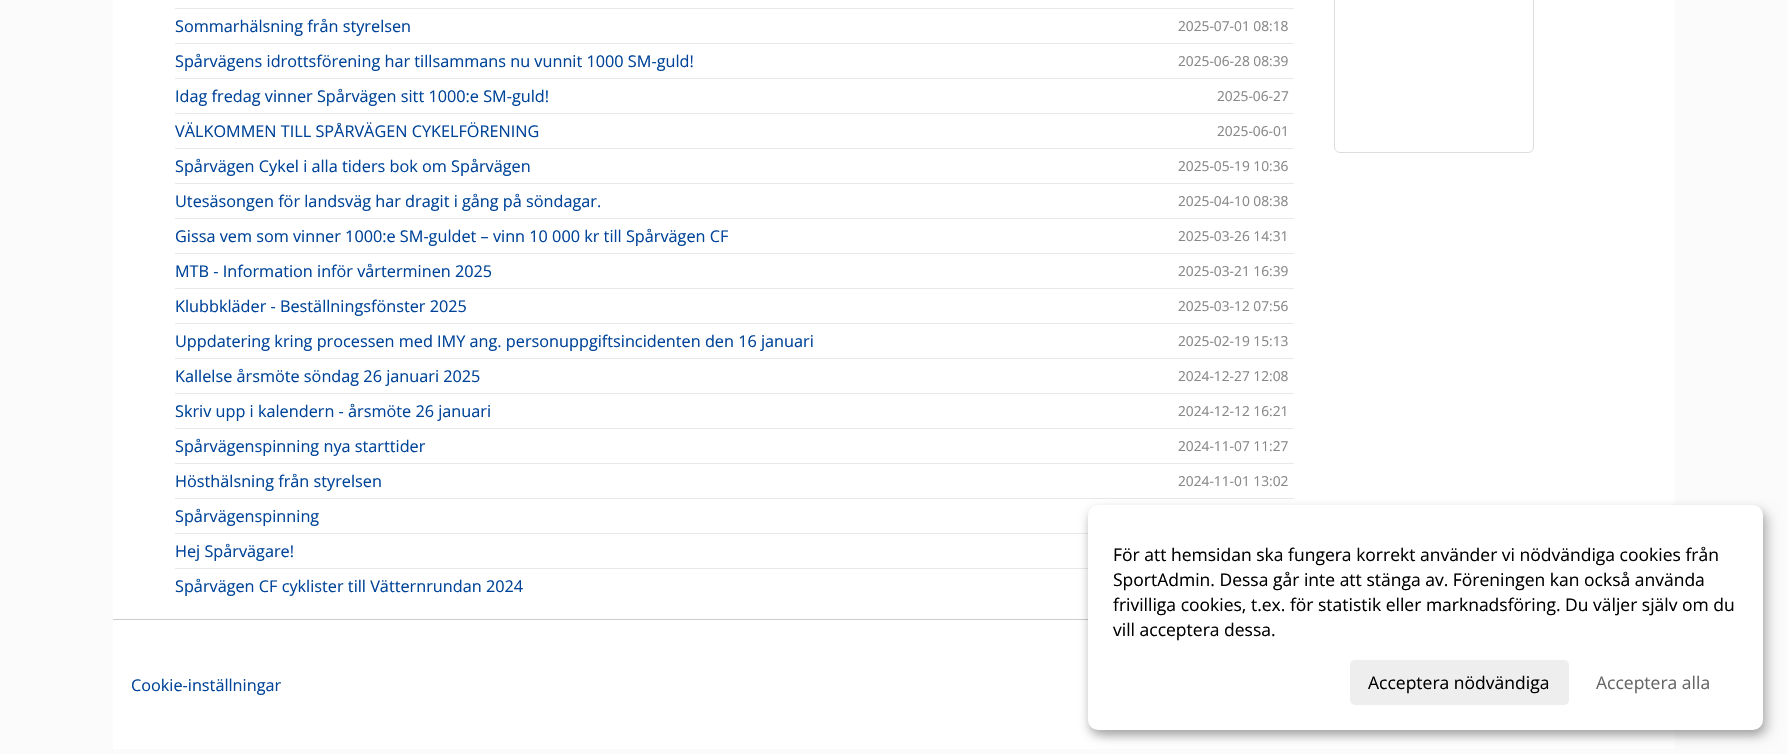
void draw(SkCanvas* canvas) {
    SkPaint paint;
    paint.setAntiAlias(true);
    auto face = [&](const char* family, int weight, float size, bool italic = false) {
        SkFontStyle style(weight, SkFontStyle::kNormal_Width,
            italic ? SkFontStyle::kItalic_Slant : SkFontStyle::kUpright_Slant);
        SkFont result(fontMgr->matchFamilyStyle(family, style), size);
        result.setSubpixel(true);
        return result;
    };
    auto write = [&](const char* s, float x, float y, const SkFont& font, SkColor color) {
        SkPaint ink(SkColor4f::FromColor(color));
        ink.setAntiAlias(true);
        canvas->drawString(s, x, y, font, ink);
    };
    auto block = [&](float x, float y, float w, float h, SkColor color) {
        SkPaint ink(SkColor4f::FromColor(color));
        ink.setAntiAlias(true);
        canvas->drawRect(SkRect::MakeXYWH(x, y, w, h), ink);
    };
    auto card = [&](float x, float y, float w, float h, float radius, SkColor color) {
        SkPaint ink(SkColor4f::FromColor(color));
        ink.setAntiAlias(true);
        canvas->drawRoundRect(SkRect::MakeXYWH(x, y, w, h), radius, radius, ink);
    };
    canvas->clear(SkColorSetRGB(251, 251, 252));
    block(113, 0, 1562, 619, SK_ColorWHITE);
    block(175, 8, 1119, 1, SkColorSetRGB(232, 232, 232));
    auto kFont1 = face("Open Sans", 400, 16.25f);
    write("Sommarhälsning från styrelsen", 175, 32, kFont1, SkColorSetRGB(0, 68, 153));
    auto kFont2 = face("Open Sans", 400, 13.75f);
    write("2025-07-01 08:18", 1178, 31, kFont2, SkColorSetRGB(136, 136, 136));
    block(175, 43, 1119, 1, SkColorSetRGB(232, 232, 232));
    write("Spårvägens idrottsförening har tillsammans nu vunnit 1000 SM-guld!", 175, 67, kFont1, SkColorSetRGB(0, 68, 153));
    write("2025-06-28 08:39", 1178, 66, kFont2, SkColorSetRGB(136, 136, 136));
    block(175, 78, 1119, 1, SkColorSetRGB(232, 232, 232));
    write("Idag fredag vinner Spårvägen sitt 1000:e SM-guld!", 175, 102, kFont1, SkColorSetRGB(0, 68, 153));
    write("2025-06-27", 1217, 101, kFont2, SkColorSetRGB(136, 136, 136));
    block(175, 113, 1119, 1, SkColorSetRGB(232, 232, 232));
    write("VÄLKOMMEN TILL SPÅRVÄGEN CYKELFÖRENING", 175, 137, kFont1, SkColorSetRGB(0, 68, 153));
    write("2025-06-01", 1217, 136, kFont2, SkColorSetRGB(136, 136, 136));
    block(175, 148, 1119, 1, SkColorSetRGB(232, 232, 232));
    write("Spårvägen Cykel i alla tiders bok om Spårvägen", 175, 172, kFont1, SkColorSetRGB(0, 68, 153));
    write("2025-05-19 10:36", 1178, 171, kFont2, SkColorSetRGB(136, 136, 136));
    block(175, 183, 1119, 1, SkColorSetRGB(232, 232, 232));
    write("Utesäsongen för landsväg har dragit i gång på söndagar.", 175, 207, kFont1, SkColorSetRGB(0, 68, 153));
    write("2025-04-10 08:38", 1178, 206, kFont2, SkColorSetRGB(136, 136, 136));
    block(175, 218, 1119, 1, SkColorSetRGB(232, 232, 232));
    write("Gissa vem som vinner 1000:e SM-guldet – vinn 10 000 kr till Spårvägen CF", 175, 242, kFont1, SkColorSetRGB(0, 68, 153));
    write("2025-03-26 14:31", 1178, 241, kFont2, SkColorSetRGB(136, 136, 136));
    block(175, 253, 1119, 1, SkColorSetRGB(232, 232, 232));
    write("MTB - Information inför vårterminen 2025", 175, 277, kFont1, SkColorSetRGB(0, 68, 153));
    write("2025-03-21 16:39", 1178, 276, kFont2, SkColorSetRGB(136, 136, 136));
    block(175, 288, 1119, 1, SkColorSetRGB(232, 232, 232));
    write("Klubbkläder - Beställningsfönster 2025", 175, 312, kFont1, SkColorSetRGB(0, 68, 153));
    write("2025-03-12 07:56", 1178, 311, kFont2, SkColorSetRGB(136, 136, 136));
    block(175, 323, 1119, 1, SkColorSetRGB(232, 232, 232));
    write("Uppdatering kring processen med IMY ang. personuppgiftsincidenten den 16 januari", 175, 347, kFont1, SkColorSetRGB(0, 68, 153));
    write("2025-02-19 15:13", 1178, 346, kFont2, SkColorSetRGB(136, 136, 136));
    block(175, 358, 1119, 1, SkColorSetRGB(232, 232, 232));
    write("Kallelse årsmöte söndag 26 januari 2025", 175, 382, kFont1, SkColorSetRGB(0, 68, 153));
    write("2024-12-27 12:08", 1178, 381, kFont2, SkColorSetRGB(136, 136, 136));
    block(175, 393, 1119, 1, SkColorSetRGB(232, 232, 232));
    write("Skriv upp i kalendern - årsmöte 26 januari", 175, 417, kFont1, SkColorSetRGB(0, 68, 153));
    write("2024-12-12 16:21", 1178, 416, kFont2, SkColorSetRGB(136, 136, 136));
    block(175, 428, 1119, 1, SkColorSetRGB(232, 232, 232));
    write("Spårvägenspinning nya starttider", 175, 452, kFont1, SkColorSetRGB(0, 68, 153));
    write("2024-11-07 11:27", 1178, 451, kFont2, SkColorSetRGB(136, 136, 136));
    block(175, 463, 1119, 1, SkColorSetRGB(232, 232, 232));
    write("Hösthälsning från styrelsen", 175, 487, kFont1, SkColorSetRGB(0, 68, 153));
    write("2024-11-01 13:02", 1178, 486, kFont2, SkColorSetRGB(136, 136, 136));
    block(175, 498, 1119, 1, SkColorSetRGB(232, 232, 232));
    write("Spårvägenspinning", 175, 522, kFont1, SkColorSetRGB(0, 68, 153));
    block(175, 533, 913, 1, SkColorSetRGB(232, 232, 232));
    write("Hej Spårvägare!", 175, 557, kFont1, SkColorSetRGB(0, 68, 153));
    block(175, 568, 913, 1, SkColorSetRGB(232, 232, 232));
    write("Spårvägen CF cyklister till Vätternrundan 2024", 175, 592, kFont1, SkColorSetRGB(0, 68, 153));
    paint.setStyle(SkPaint::kStroke_Style);
    paint.setStrokeWidth(1);
    paint.setColor(SkColorSetRGB(221, 221, 221));
    canvas->drawRoundRect(SkRect::MakeXYWH(1334.5f, -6.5f, 199, 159), 5.5f, 5.5f, paint);
    block(113, 620, 1562, 129, SK_ColorWHITE);
    block(113, 619, 975, 1, SkColorSetRGB(204, 204, 204));
    write("Cookie-inställningar", 131, 691, kFont1, SkColorSetRGB(0, 68, 153));
    paint.setStyle(SkPaint::kFill_Style);
    paint.setColor(SkColorSetARGB(48, 0, 0, 0));
    paint.setMaskFilter(SkMaskFilter::MakeBlur(kNormal_SkBlurStyle, 6));
    canvas->drawRoundRect(SkRect::MakeXYWH(1094, 511, 675, 225), 10, 10, paint);
    paint.setMaskFilter(nullptr);
    paint.setColor(SkColorSetARGB(51, 0, 0, 0));
    paint.setMaskFilter(SkMaskFilter::MakeBlur(kNormal_SkBlurStyle, 4));
    canvas->drawRoundRect(SkRect::MakeXYWH(1088, 510, 675, 225), 10, 10, paint);
    paint.setMaskFilter(nullptr);
    card(1088, 505, 675, 225, 10, SK_ColorWHITE);
    auto kFont3 = face("Open Sans", 400, 17.5f);
    write("För att hemsidan ska fungera korrekt använder vi nödvändiga cookies från", 1113, 561, kFont3, SK_ColorBLACK);
    write("SportAdmin. Dessa går inte att stänga av. Föreningen kan också använda", 1113, 586, kFont3, SK_ColorBLACK);
    write("frivilliga cookies, t.ex. för statistik eller marknadsföring. Du väljer själv om du", 1113, 611, kFont3, SK_ColorBLACK);
    write("vill acceptera dessa.", 1113, 636, kFont3, SK_ColorBLACK);
    card(1350, 660, 219, 45, 5, SkColorSetRGB(238, 238, 238));
    write("Acceptera nödvändiga", 1368, 689, kFont3, SK_ColorBLACK);
    write("Acceptera alla", 1596, 689, kFont3, SkColorSetRGB(102, 102, 102));
}
